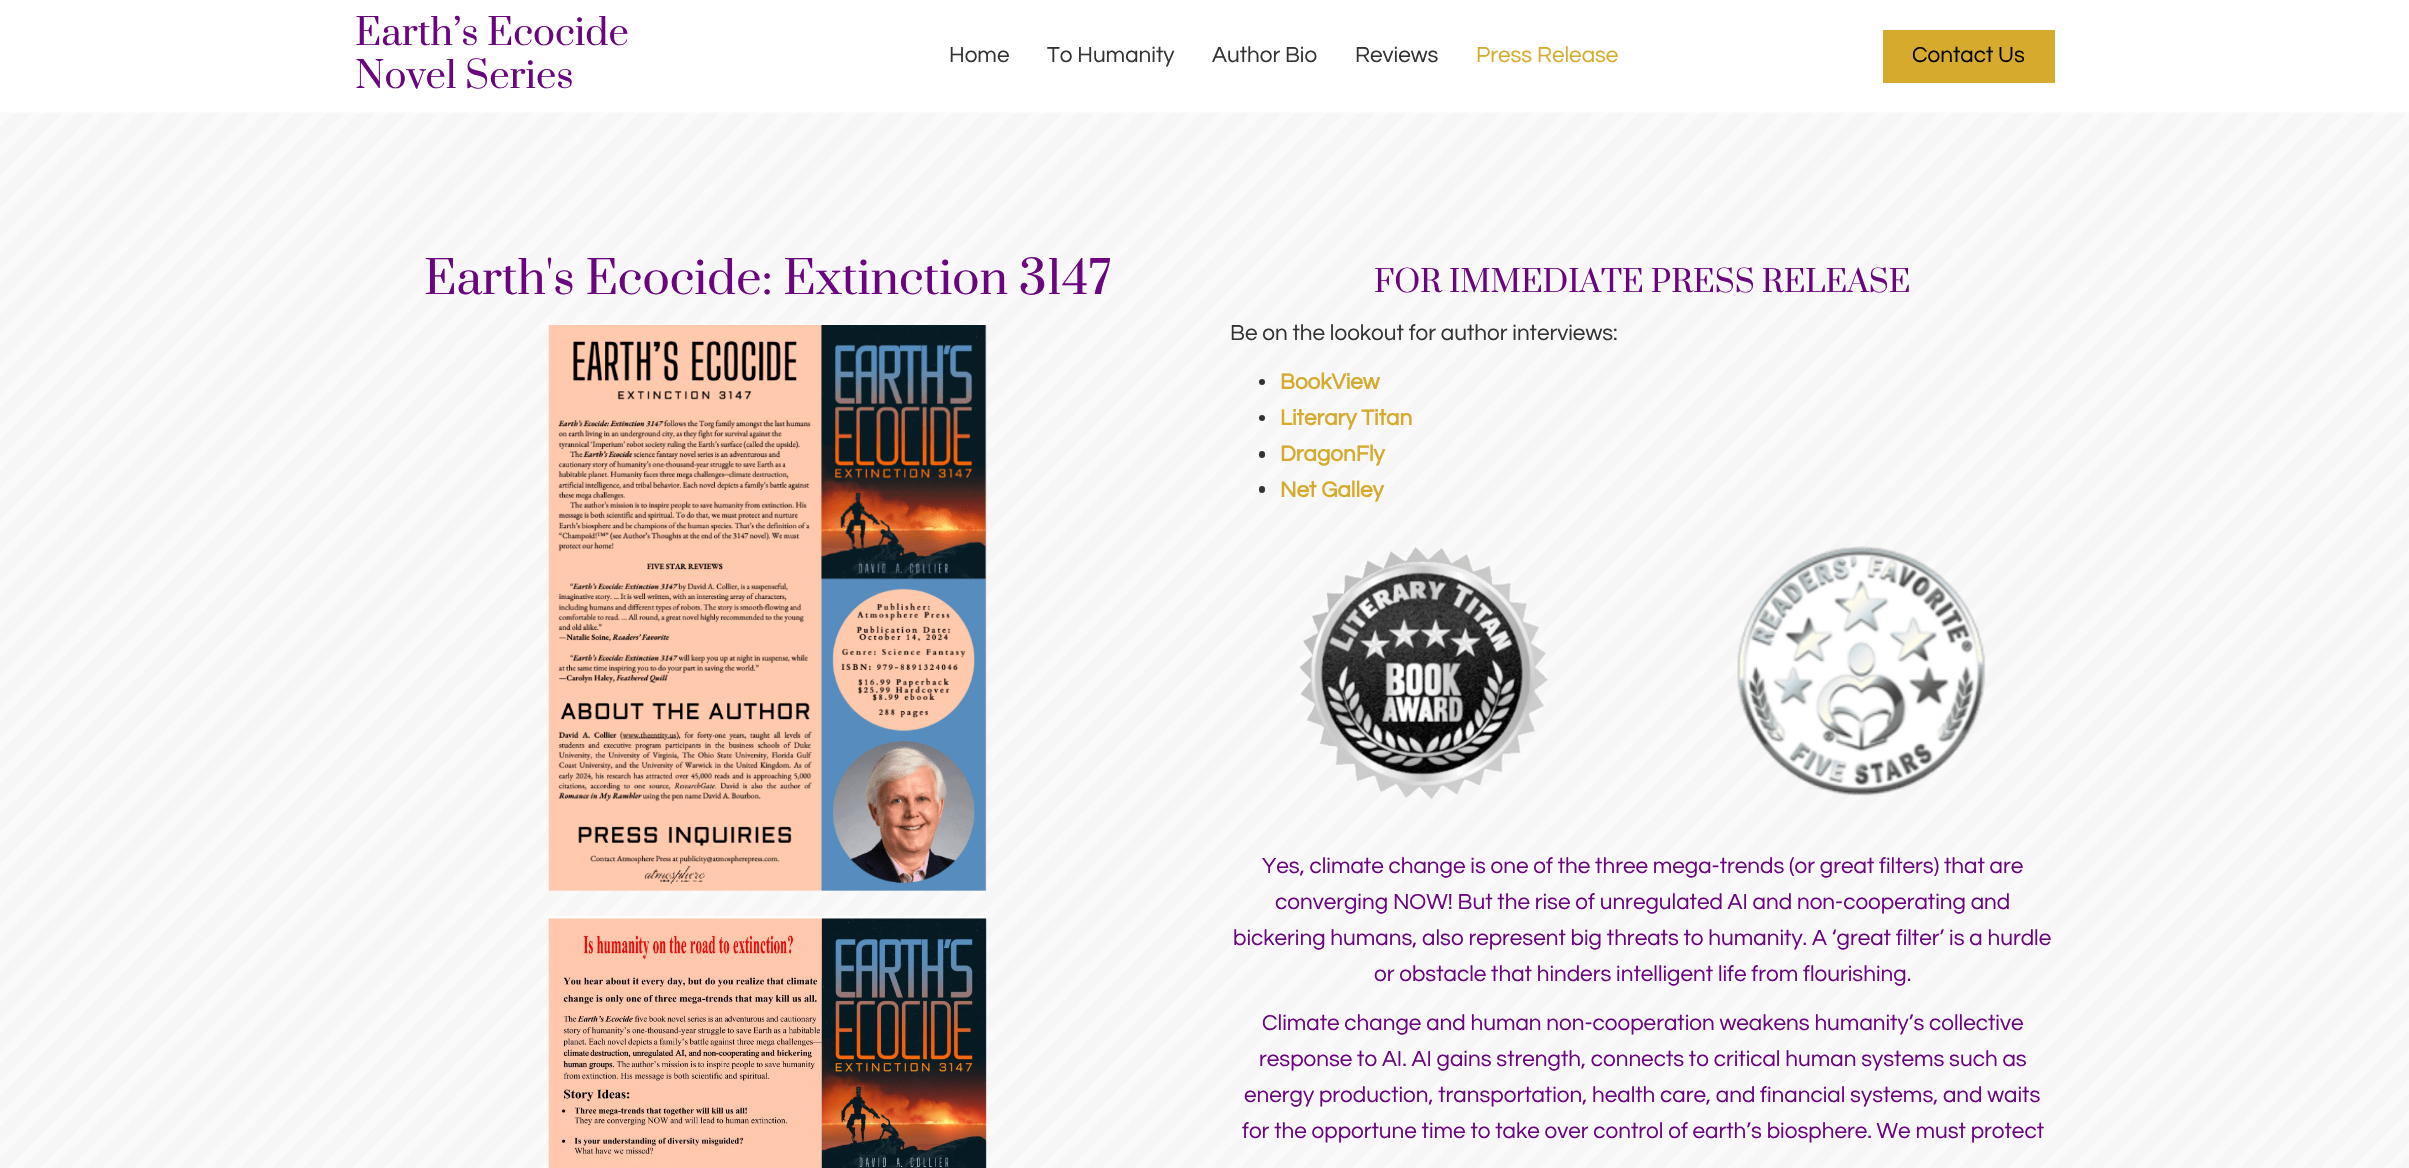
void draw(SkCanvas* canvas) {
    SkPaint paint;
    paint.setAntiAlias(true);
    auto face = [&](const char* family, int weight, float size, bool italic = false) {
        SkFontStyle style(weight, SkFontStyle::kNormal_Width,
            italic ? SkFontStyle::kItalic_Slant : SkFontStyle::kUpright_Slant);
        SkFont result(fontMgr->matchFamilyStyle(family, style), size);
        result.setSubpixel(true);
        return result;
    };
    auto write = [&](const char* s, float x, float y, const SkFont& font, SkColor color) {
        SkPaint ink(SkColor4f::FromColor(color));
        ink.setAntiAlias(true);
        canvas->drawString(s, x, y, font, ink);
    };
    auto block = [&](float x, float y, float w, float h, SkColor color) {
        SkPaint ink(SkColor4f::FromColor(color));
        ink.setAntiAlias(true);
        canvas->drawRect(SkRect::MakeXYWH(x, y, w, h), ink);
    };
    auto card = [&](float x, float y, float w, float h, float radius, SkColor color) {
        SkPaint ink(SkColor4f::FromColor(color));
        ink.setAntiAlias(true);
        canvas->drawRoundRect(SkRect::MakeXYWH(x, y, w, h), radius, radius, ink);
    };
    auto paste = [&](const char* path, float x, float y, float w, float h) {
        auto image = SkImages::DeferredFromEncodedData(SkData::MakeFromFileName(path));
        canvas->drawImageRect(image, SkRect::MakeXYWH(x, y, w, h), SkSamplingOptions());
    };
    canvas->clear(SK_ColorWHITE);
    auto kFont1 = face("Prata", 400, 36.25f);
    write("Earth’s Ecocide", 355, 45, kFont1, SkColorSetRGB(106, 5, 127));
    write("Novel Series", 355, 88, kFont1, SkColorSetRGB(106, 5, 127));
    auto kFont2 = face("Questrial", 400, 22.5f);
    write("Home", 949, 62, kFont2, SkColorSetRGB(51, 51, 51));
    write("To Humanity", 1047, 62, kFont2, SkColorSetRGB(51, 51, 51));
    write("Author Bio", 1212, 62, kFont2, SkColorSetRGB(51, 51, 51));
    write("Reviews", 1355, 62, kFont2, SkColorSetRGB(51, 51, 51));
    write("Press Release", 1476, 62, kFont2, SkColorSetRGB(214, 170, 44));
    block(1883, 30, 172, 53, SkColorSetRGB(214, 170, 44));
    write("Contact Us", 1912, 62, kFont2, SK_ColorBLACK);
    paste("pic1.png", 0, 112, 2409, 1056);
    auto kFont3 = face("Prata", 400, 45);
    write("Earth's Ecocide: Extinction 3147", 424, 294, kFont3, SkColorSetRGB(106, 5, 127));
    paste("pic2.png", 548, 325, 439, 566);
    paste("pic3.png", 548, 916, 439, 252);
    auto kFont4 = face("Prata", 400, 30);
    write("FOR IMMEDIATE PRESS RELEASE", 1374, 292, kFont4, SkColorSetRGB(106, 5, 127));
    write("Be on the lookout for author interviews:", 1230, 340, kFont2, SkColorSetRGB(51, 51, 51));
    paint.setColor(SkColorSetRGB(51, 51, 51));
    canvas->drawCircle(1262, 382, 3, paint);
    auto kFont5 = face("Questrial", 700, 22.5f);
    write("BookView", 1280, 389, kFont5, SkColorSetRGB(214, 170, 44));
    canvas->drawCircle(1262, 418, 3, paint);
    write("Literary Titan", 1280, 425, kFont5, SkColorSetRGB(214, 170, 44));
    card(1259, 451, 6, 7, 3, SkColorSetRGB(51, 51, 51));
    write("DragonFly", 1280, 461, kFont5, SkColorSetRGB(214, 170, 44));
    card(1259, 486, 6, 7, 3, SkColorSetRGB(51, 51, 51));
    write("Net Galley", 1280, 497, kFont5, SkColorSetRGB(214, 170, 44));
    paste("pic4.png", 1299, 547, 249, 253);
    paste("pic5.png", 1737, 546, 249, 250);
    write("Yes, climate change is one of the three mega-trends (or great filters) that are", 1262, 873, kFont2, SkColorSetRGB(106, 5, 127));
    write("converging NOW! But the rise of unregulated AI and non-cooperating and", 1275, 909, kFont2, SkColorSetRGB(106, 5, 127));
    write("bickering humans, also represent big threats to humanity. A ‘great filter’ is a hurdle", 1233, 945, kFont2, SkColorSetRGB(106, 5, 127));
    write("or obstacle that hinders intelligent life from flourishing.", 1374, 981, kFont2, SkColorSetRGB(106, 5, 127));
    write("Climate change and human non-cooperation weakens humanity’s collective", 1262, 1030, kFont2, SkColorSetRGB(106, 5, 127));
    write("response to AI. AI gains strength, connects to critical human systems such as", 1259, 1066, kFont2, SkColorSetRGB(106, 5, 127));
    write("energy production, transportation, health care, and financial systems, and waits", 1244, 1102, kFont2, SkColorSetRGB(106, 5, 127));
    write("for the opportune time to take over control of earth’s biosphere. We must protect", 1242, 1138, kFont2, SkColorSetRGB(106, 5, 127));
}
